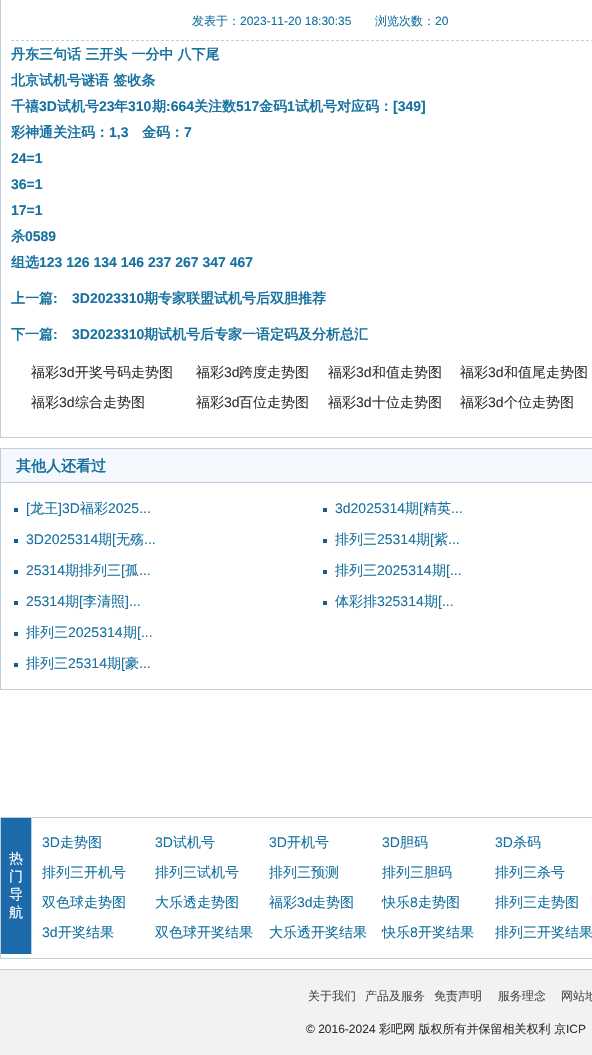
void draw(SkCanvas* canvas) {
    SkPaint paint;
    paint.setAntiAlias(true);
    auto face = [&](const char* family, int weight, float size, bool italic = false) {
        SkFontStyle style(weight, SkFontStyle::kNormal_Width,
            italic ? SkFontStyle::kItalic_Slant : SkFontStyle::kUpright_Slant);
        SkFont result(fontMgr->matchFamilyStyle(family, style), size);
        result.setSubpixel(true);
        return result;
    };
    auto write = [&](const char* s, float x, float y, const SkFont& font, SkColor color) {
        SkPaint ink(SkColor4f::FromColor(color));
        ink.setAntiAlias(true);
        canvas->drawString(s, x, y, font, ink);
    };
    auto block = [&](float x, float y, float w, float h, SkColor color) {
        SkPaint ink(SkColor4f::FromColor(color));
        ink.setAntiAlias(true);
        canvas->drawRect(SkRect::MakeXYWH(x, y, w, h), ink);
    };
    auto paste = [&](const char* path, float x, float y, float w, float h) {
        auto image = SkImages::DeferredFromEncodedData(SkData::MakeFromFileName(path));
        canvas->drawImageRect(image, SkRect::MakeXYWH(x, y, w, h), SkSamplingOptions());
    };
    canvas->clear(SK_ColorWHITE);
    block(0, 437, 592, 1, SkColorSetRGB(190, 207, 222));
    paint.setColor(SkColorSetRGB(190, 207, 222));
    canvas->drawPath(SkPathBuilder().moveTo(0, 438).lineTo(0, -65).lineTo(1, -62).lineTo(1, 437).close().detach(), paint);
    paint.setStyle(SkPaint::kStroke_Style);
    paint.setStrokeWidth(1);
    paint.setPathEffect(SkDashPathEffect::Make({{3, 2}}, 0));
    canvas->drawPath(SkPathBuilder().moveTo(11, 40.5f).lineTo(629, 40.5f).detach(), paint);
    paint.setPathEffect(nullptr);
    auto kFont1 = face("WenQuanYi Zen Hei", 500, 12);
    write("发表于：", 192, 25, kFont1, SkColorSetRGB(23, 114, 160));
    auto kFont2 = face("Liberation Sans", 400, 12);
    write("2023-11-20 18:30:35", 240, 25, kFont2, SkColorSetRGB(23, 114, 160));
    write("浏览次数：", 375, 25, kFont1, SkColorSetRGB(23, 114, 160));
    write("20", 435, 25, kFont2, SkColorSetRGB(23, 114, 160));
    auto kFont3 = face("WenQuanYi Zen Hei", 700, 14);
    write("丹东三句话 三开头 一分中 八下尾", 11, 59, kFont3, SkColorSetRGB(23, 114, 160));
    write("北京试机号", 11, 85, kFont3, SkColorSetRGB(23, 114, 160));
    write("谜语 签收条", 81, 85, kFont3, SkColorSetRGB(23, 114, 160));
    write("千禧", 11, 111, kFont3, SkColorSetRGB(23, 114, 160));
    auto kFont4 = face("Liberation Sans", 700, 14);
    write("3D", 39, 111, kFont4, SkColorSetRGB(23, 114, 160));
    write("试机号", 57, 111, kFont3, SkColorSetRGB(23, 114, 160));
    write("23", 99, 111, kFont4, SkColorSetRGB(23, 114, 160));
    write("年", 114, 111, kFont3, SkColorSetRGB(23, 114, 160));
    write("310", 128, 111, kFont4, SkColorSetRGB(23, 114, 160));
    write("期", 152, 111, kFont3, SkColorSetRGB(23, 114, 160));
    write(":664", 166, 111, kFont4, SkColorSetRGB(23, 114, 160));
    write("关注数", 194, 111, kFont3, SkColorSetRGB(23, 114, 160));
    write("517", 236, 111, kFont4, SkColorSetRGB(23, 114, 160));
    write("金码", 259, 111, kFont3, SkColorSetRGB(23, 114, 160));
    write("1", 287, 111, kFont4, SkColorSetRGB(23, 114, 160));
    write("试机号对应码：", 295, 111, kFont3, SkColorSetRGB(23, 114, 160));
    write("[349]", 393, 111, kFont4, SkColorSetRGB(23, 114, 160));
    write("彩神通关注码：", 11, 137, kFont3, SkColorSetRGB(23, 114, 160));
    write("1,3", 109, 137, kFont4, SkColorSetRGB(23, 114, 160));
    write("金码：", 142, 137, kFont3, SkColorSetRGB(23, 114, 160));
    write("7", 184, 137, kFont4, SkColorSetRGB(23, 114, 160));
    write("24=1", 11, 163, kFont4, SkColorSetRGB(23, 114, 160));
    write("36=1", 11, 189, kFont4, SkColorSetRGB(23, 114, 160));
    write("17=1", 11, 215, kFont4, SkColorSetRGB(23, 114, 160));
    write("杀", 11, 241, kFont3, SkColorSetRGB(23, 114, 160));
    write("0589", 25, 241, kFont4, SkColorSetRGB(23, 114, 160));
    write("组选", 11, 267, kFont3, SkColorSetRGB(23, 114, 160));
    write("123 126 134 146 237 267 347 467", 39, 267, kFont4, SkColorSetRGB(23, 114, 160));
    write("上一篇", 11, 303, kFont3, SkColorSetRGB(23, 114, 160));
    write(":", 53, 303, kFont4, SkColorSetRGB(23, 114, 160));
    write("3D2023310", 72, 303, kFont4, SkColorSetRGB(23, 114, 160));
    write("期专家联盟试机号后双胆推荐", 144, 303, kFont3, SkColorSetRGB(23, 114, 160));
    write("下一篇", 11, 339, kFont3, SkColorSetRGB(23, 114, 160));
    write(":", 53, 339, kFont4, SkColorSetRGB(23, 114, 160));
    write("3D2023310", 72, 339, kFont4, SkColorSetRGB(23, 114, 160));
    write("期试机号后专家一语定码及分析总汇", 144, 339, kFont3, SkColorSetRGB(23, 114, 160));
    auto kFont5 = face("WenQuanYi Zen Hei", 500, 14);
    write("福彩", 31, 377, kFont5, SkColorSetRGB(51, 51, 51));
    auto kFont6 = face("Liberation Sans", 400, 14);
    write("3d", 59, 377, kFont6, SkColorSetRGB(51, 51, 51));
    write("开奖号码走势图", 75, 377, kFont5, SkColorSetRGB(51, 51, 51));
    write("福彩", 196, 377, kFont5, SkColorSetRGB(51, 51, 51));
    write("3d", 224, 377, kFont6, SkColorSetRGB(51, 51, 51));
    write("跨度走势图", 239, 377, kFont5, SkColorSetRGB(51, 51, 51));
    write("福彩", 328, 377, kFont5, SkColorSetRGB(51, 51, 51));
    write("3d", 356, 377, kFont6, SkColorSetRGB(51, 51, 51));
    write("和值走势图", 372, 377, kFont5, SkColorSetRGB(51, 51, 51));
    write("福彩", 460, 377, kFont5, SkColorSetRGB(51, 51, 51));
    write("3d", 488, 377, kFont6, SkColorSetRGB(51, 51, 51));
    write("和值尾走势图", 504, 377, kFont5, SkColorSetRGB(51, 51, 51));
    write("福彩", 31, 407, kFont5, SkColorSetRGB(51, 51, 51));
    write("3d", 59, 407, kFont6, SkColorSetRGB(51, 51, 51));
    write("综合走势图", 75, 407, kFont5, SkColorSetRGB(51, 51, 51));
    write("福彩", 196, 407, kFont5, SkColorSetRGB(51, 51, 51));
    write("3d", 224, 407, kFont6, SkColorSetRGB(51, 51, 51));
    write("百位走势图", 239, 407, kFont5, SkColorSetRGB(51, 51, 51));
    write("福彩", 328, 407, kFont5, SkColorSetRGB(51, 51, 51));
    write("3d", 356, 407, kFont6, SkColorSetRGB(51, 51, 51));
    write("十位走势图", 372, 407, kFont5, SkColorSetRGB(51, 51, 51));
    write("福彩", 460, 407, kFont5, SkColorSetRGB(51, 51, 51));
    write("3d", 488, 407, kFont6, SkColorSetRGB(51, 51, 51));
    write("个位走势图", 504, 407, kFont5, SkColorSetRGB(51, 51, 51));
    canvas->drawRect(SkRect::MakeXYWH(0.5f, 448.5f, 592, 241), paint);
    paste("pic1.png", 1, 449, 591, 34);
    auto kFont7 = face("WenQuanYi Zen Hei", 700, 15);
    write("其他人还看过", 16, 471, kFont7, SkColorSetRGB(23, 114, 160));
    block(14, 508, 4, 4, SkColorSetRGB(22, 94, 143));
    write("[", 26, 513, kFont6, SkColorSetRGB(23, 114, 160));
    write("龙王", 30, 513, kFont5, SkColorSetRGB(23, 114, 160));
    write("]3D", 58, 513, kFont6, SkColorSetRGB(23, 114, 160));
    write("福彩", 80, 513, kFont5, SkColorSetRGB(23, 114, 160));
    write("2025...", 108, 513, kFont6, SkColorSetRGB(23, 114, 160));
    block(14, 539, 4, 4, SkColorSetRGB(22, 94, 143));
    write("3D2025314", 26, 544, kFont6, SkColorSetRGB(23, 114, 160));
    write("期", 98, 544, kFont5, SkColorSetRGB(23, 114, 160));
    write("[", 112, 544, kFont6, SkColorSetRGB(23, 114, 160));
    write("无殇", 116, 544, kFont5, SkColorSetRGB(23, 114, 160));
    write("...", 144, 544, kFont6, SkColorSetRGB(23, 114, 160));
    block(323, 508, 4, 4, SkColorSetRGB(22, 94, 143));
    write("3d2025314", 335, 513, kFont6, SkColorSetRGB(23, 114, 160));
    write("期", 405, 513, kFont5, SkColorSetRGB(23, 114, 160));
    write("[", 419, 513, kFont6, SkColorSetRGB(23, 114, 160));
    write("精英", 423, 513, kFont5, SkColorSetRGB(23, 114, 160));
    write("...", 451, 513, kFont6, SkColorSetRGB(23, 114, 160));
    block(323, 539, 4, 4, SkColorSetRGB(22, 94, 143));
    write("排列三", 335, 544, kFont5, SkColorSetRGB(23, 114, 160));
    write("25314", 377, 544, kFont6, SkColorSetRGB(23, 114, 160));
    write("期", 416, 544, kFont5, SkColorSetRGB(23, 114, 160));
    write("[", 430, 544, kFont6, SkColorSetRGB(23, 114, 160));
    write("紫", 434, 544, kFont5, SkColorSetRGB(23, 114, 160));
    write("...", 448, 544, kFont6, SkColorSetRGB(23, 114, 160));
    block(14, 570, 4, 4, SkColorSetRGB(22, 94, 143));
    write("25314", 26, 575, kFont6, SkColorSetRGB(23, 114, 160));
    write("期排列三", 65, 575, kFont5, SkColorSetRGB(23, 114, 160));
    write("[", 121, 575, kFont6, SkColorSetRGB(23, 114, 160));
    write("孤", 125, 575, kFont5, SkColorSetRGB(23, 114, 160));
    write("...", 139, 575, kFont6, SkColorSetRGB(23, 114, 160));
    block(14, 601, 4, 4, SkColorSetRGB(22, 94, 143));
    write("25314", 26, 606, kFont6, SkColorSetRGB(23, 114, 160));
    write("期", 65, 606, kFont5, SkColorSetRGB(23, 114, 160));
    write("[", 79, 606, kFont6, SkColorSetRGB(23, 114, 160));
    write("李清照", 83, 606, kFont5, SkColorSetRGB(23, 114, 160));
    write("]...", 125, 606, kFont6, SkColorSetRGB(23, 114, 160));
    block(323, 570, 4, 4, SkColorSetRGB(22, 94, 143));
    write("排列三", 335, 575, kFont5, SkColorSetRGB(23, 114, 160));
    write("2025314", 377, 575, kFont6, SkColorSetRGB(23, 114, 160));
    write("期", 432, 575, kFont5, SkColorSetRGB(23, 114, 160));
    write("[...", 446, 575, kFont6, SkColorSetRGB(23, 114, 160));
    block(323, 601, 4, 4, SkColorSetRGB(22, 94, 143));
    write("体彩排", 335, 606, kFont5, SkColorSetRGB(23, 114, 160));
    write("325314", 377, 606, kFont6, SkColorSetRGB(23, 114, 160));
    write("期", 424, 606, kFont5, SkColorSetRGB(23, 114, 160));
    write("[...", 438, 606, kFont6, SkColorSetRGB(23, 114, 160));
    block(14, 632, 4, 4, SkColorSetRGB(22, 94, 143));
    write("排列三", 26, 637, kFont5, SkColorSetRGB(23, 114, 160));
    write("2025314", 68, 637, kFont6, SkColorSetRGB(23, 114, 160));
    write("期", 123, 637, kFont5, SkColorSetRGB(23, 114, 160));
    write("[...", 137, 637, kFont6, SkColorSetRGB(23, 114, 160));
    block(14, 663, 4, 4, SkColorSetRGB(22, 94, 143));
    write("排列三", 26, 668, kFont5, SkColorSetRGB(23, 114, 160));
    write("25314", 68, 668, kFont6, SkColorSetRGB(23, 114, 160));
    write("期", 107, 668, kFont5, SkColorSetRGB(23, 114, 160));
    write("[", 121, 668, kFont6, SkColorSetRGB(23, 114, 160));
    write("豪", 125, 668, kFont5, SkColorSetRGB(23, 114, 160));
    write("...", 139, 668, kFont6, SkColorSetRGB(23, 114, 160));
    canvas->drawRect(SkRect::MakeXYWH(0.5f, 817.5f, 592, 141), paint);
    block(1, 818, 30, 136, SkColorSetRGB(29, 106, 170));
    block(31, 818, 1, 136, SkColorSetRGB(190, 207, 222));
    write("热", 9, 863, kFont5, SK_ColorWHITE);
    write("门", 9, 881, kFont5, SK_ColorWHITE);
    write("导", 9, 899, kFont5, SK_ColorWHITE);
    write("航", 9, 917, kFont5, SK_ColorWHITE);
    write("3D", 42, 847, kFont6, SkColorSetRGB(23, 114, 160));
    write("走势图", 60, 847, kFont5, SkColorSetRGB(23, 114, 160));
    write("3D", 155, 847, kFont6, SkColorSetRGB(23, 114, 160));
    write("试机号", 173, 847, kFont5, SkColorSetRGB(23, 114, 160));
    write("3D", 269, 847, kFont6, SkColorSetRGB(23, 114, 160));
    write("开机号", 287, 847, kFont5, SkColorSetRGB(23, 114, 160));
    write("3D", 382, 847, kFont6, SkColorSetRGB(23, 114, 160));
    write("胆码", 400, 847, kFont5, SkColorSetRGB(23, 114, 160));
    write("3D", 495, 847, kFont6, SkColorSetRGB(23, 114, 160));
    write("杀码", 513, 847, kFont5, SkColorSetRGB(23, 114, 160));
    write("排列三开机号", 42, 877, kFont5, SkColorSetRGB(23, 114, 160));
    write("排列三试机号", 155, 877, kFont5, SkColorSetRGB(23, 114, 160));
    write("排列三预测", 269, 877, kFont5, SkColorSetRGB(23, 114, 160));
    write("排列三胆码", 382, 877, kFont5, SkColorSetRGB(23, 114, 160));
    write("排列三杀号", 495, 877, kFont5, SkColorSetRGB(23, 114, 160));
    write("双色球走势图", 42, 907, kFont5, SkColorSetRGB(23, 114, 160));
    write("大乐透走势图", 155, 907, kFont5, SkColorSetRGB(23, 114, 160));
    write("福彩", 269, 907, kFont5, SkColorSetRGB(23, 114, 160));
    write("3d", 297, 907, kFont6, SkColorSetRGB(23, 114, 160));
    write("走势图", 312, 907, kFont5, SkColorSetRGB(23, 114, 160));
    write("快乐", 382, 907, kFont5, SkColorSetRGB(23, 114, 160));
    write("8", 410, 907, kFont6, SkColorSetRGB(23, 114, 160));
    write("走势图", 418, 907, kFont5, SkColorSetRGB(23, 114, 160));
    write("排列三走势图", 495, 907, kFont5, SkColorSetRGB(23, 114, 160));
    write("3d", 42, 937, kFont6, SkColorSetRGB(23, 114, 160));
    write("开奖结果", 58, 937, kFont5, SkColorSetRGB(23, 114, 160));
    write("双色球开奖结果", 155, 937, kFont5, SkColorSetRGB(23, 114, 160));
    write("大乐透开奖结果", 269, 937, kFont5, SkColorSetRGB(23, 114, 160));
    write("快乐", 382, 937, kFont5, SkColorSetRGB(23, 114, 160));
    write("8", 410, 937, kFont6, SkColorSetRGB(23, 114, 160));
    write("开奖结果", 418, 937, kFont5, SkColorSetRGB(23, 114, 160));
    write("排列三开奖结果", 495, 937, kFont5, SkColorSetRGB(23, 114, 160));
    block(0, 970, 592, 85, SkColorSetRGB(242, 242, 242));
    block(0, 969, 592, 1, SkColorSetRGB(204, 204, 204));
    write("关于我们", 308, 1000, kFont1, SkColorSetRGB(74, 74, 74));
    write("产品及服务", 365, 1000, kFont1, SkColorSetRGB(74, 74, 74));
    write("免责声明", 434, 1000, kFont1, SkColorSetRGB(74, 74, 74));
    write("服务理念", 498, 1000, kFont1, SkColorSetRGB(74, 74, 74));
    write("网站地", 561, 1000, kFont1, SkColorSetRGB(74, 74, 74));
    write("© 2016-2024", 306, 1033, kFont2, SkColorSetRGB(51, 51, 51));
    write("彩吧网 版权所有并保留相关权利 京", 379, 1033, kFont1, SkColorSetRGB(51, 51, 51));
    write("ICP", 566, 1033, kFont2, SkColorSetRGB(51, 51, 51));
}
